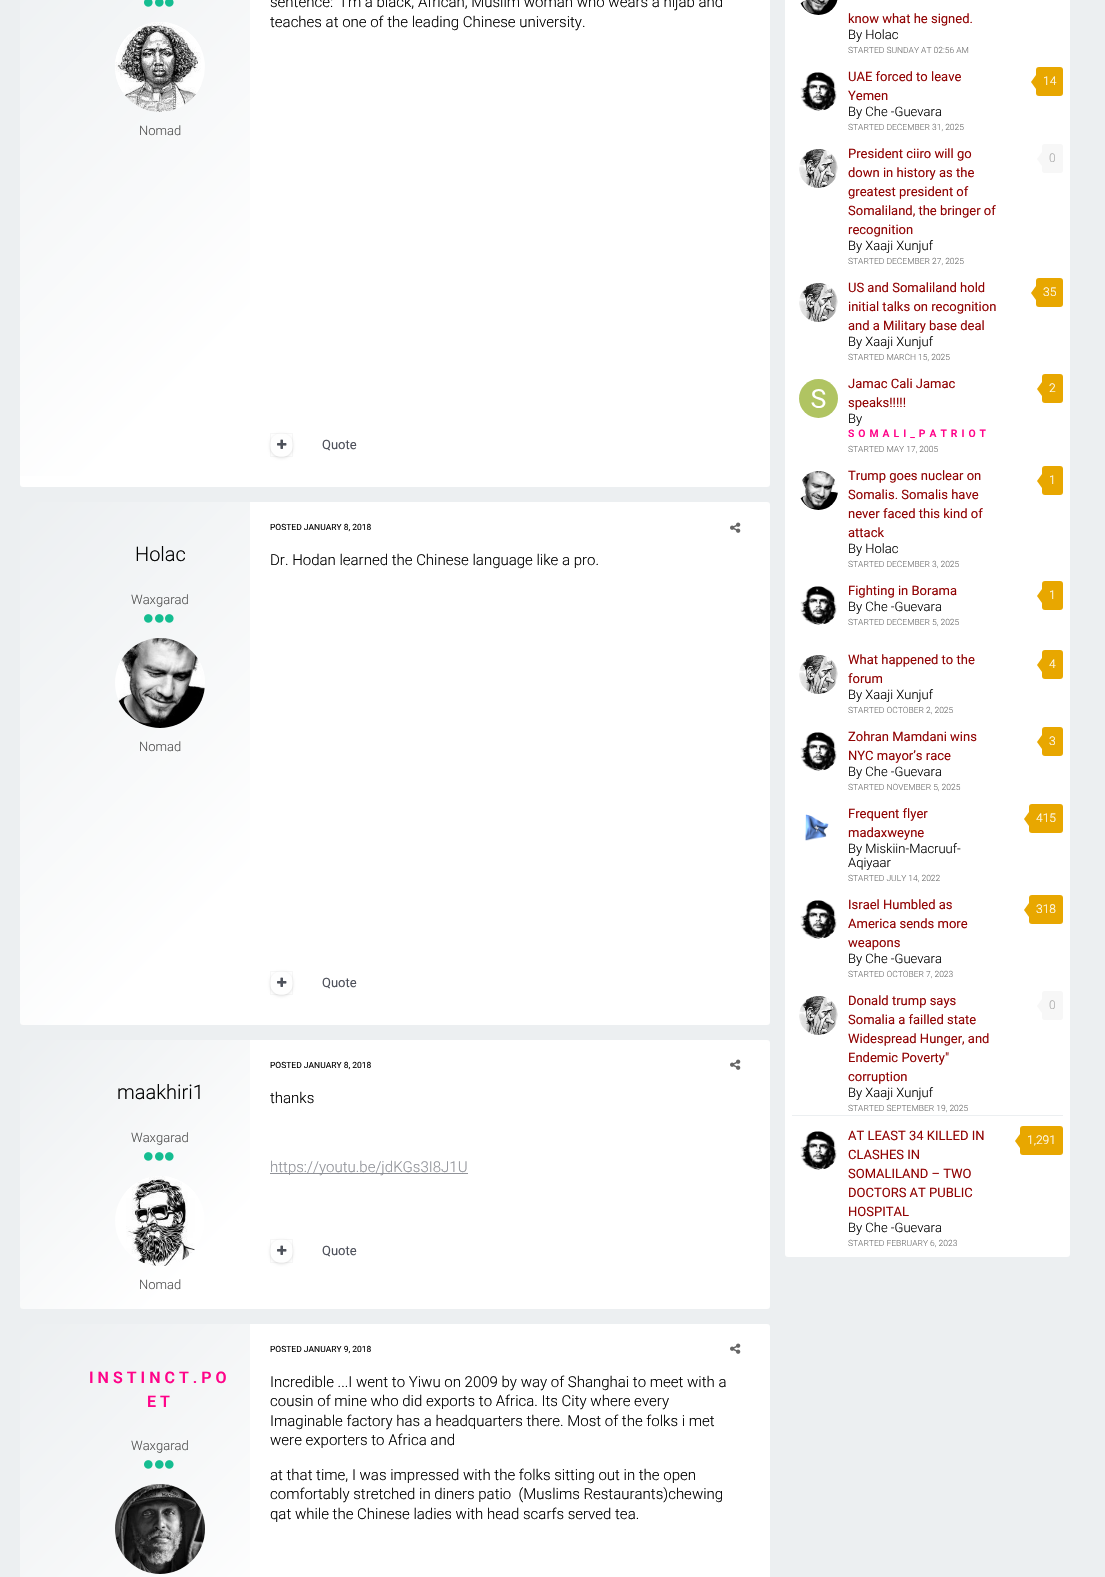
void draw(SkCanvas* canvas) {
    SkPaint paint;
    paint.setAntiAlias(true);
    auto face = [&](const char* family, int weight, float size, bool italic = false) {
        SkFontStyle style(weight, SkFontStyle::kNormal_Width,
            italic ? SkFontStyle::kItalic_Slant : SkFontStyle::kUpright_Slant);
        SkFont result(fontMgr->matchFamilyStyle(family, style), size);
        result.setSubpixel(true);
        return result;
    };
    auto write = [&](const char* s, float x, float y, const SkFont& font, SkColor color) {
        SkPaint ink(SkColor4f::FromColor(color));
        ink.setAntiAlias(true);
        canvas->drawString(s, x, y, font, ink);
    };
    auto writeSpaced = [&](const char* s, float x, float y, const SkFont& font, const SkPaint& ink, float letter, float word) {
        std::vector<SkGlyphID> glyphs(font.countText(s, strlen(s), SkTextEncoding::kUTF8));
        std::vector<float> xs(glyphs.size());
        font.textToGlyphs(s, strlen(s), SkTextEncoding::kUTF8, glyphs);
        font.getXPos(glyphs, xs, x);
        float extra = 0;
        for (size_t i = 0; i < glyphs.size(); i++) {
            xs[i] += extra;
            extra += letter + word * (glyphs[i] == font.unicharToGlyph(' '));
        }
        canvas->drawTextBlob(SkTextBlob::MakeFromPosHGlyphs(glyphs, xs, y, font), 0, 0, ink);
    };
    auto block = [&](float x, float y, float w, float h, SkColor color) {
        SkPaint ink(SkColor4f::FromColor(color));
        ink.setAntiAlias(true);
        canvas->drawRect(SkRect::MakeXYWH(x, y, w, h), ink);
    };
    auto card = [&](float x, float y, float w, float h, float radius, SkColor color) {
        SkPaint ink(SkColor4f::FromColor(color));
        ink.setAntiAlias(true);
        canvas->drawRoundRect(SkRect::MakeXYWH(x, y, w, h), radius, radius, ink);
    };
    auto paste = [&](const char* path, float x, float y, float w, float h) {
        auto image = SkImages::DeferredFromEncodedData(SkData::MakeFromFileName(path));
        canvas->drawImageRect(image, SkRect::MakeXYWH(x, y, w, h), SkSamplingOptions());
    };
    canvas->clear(SkColorSetRGB(236, 239, 241));
    card(20, -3, 750, 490, 3, SK_ColorWHITE);
    {
        const SkColor colors[] = {SkColorSetRGB(236, 239, 241), SkColorSetARGB(0, 236, 239, 241), SkColorSetARGB(0, 255, 255, 255)};
        const float stops[] = {0, 0.8f, 1};
        const SkPoint ends[] = {{-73, -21}, {343, 394}};
        paint.setShader(SkGradientShader::MakeLinear(ends, colors, stops, 3, SkTileMode::kClamp));
        paint.setAlpha(255);
    }
    canvas->drawRect(SkRect::MakeXYWH(20, 0, 230, 476), paint);
    paste("pic1.png", 144, 0, 9, 7);
    paste("pic2.png", 155, 0, 9, 7);
    paste("pic3.png", 165, 0, 9, 7);
    paint.setShader(nullptr);
    paint.setColor(SK_ColorWHITE);
    canvas->drawCircle(160, 67, 45, paint);
    paste("pic4.png", 115, 22, 86, 90);
    auto kFont1 = face("Roboto", 300, 13);
    write("Nomad", 139, 135, kFont1, SkColorSetRGB(82, 82, 82));
    auto kFont2 = face("Roboto", 300, 15);
    write("sentence: “I’m a black, African, Muslim woman who wears a hijab and", 270, 7, kFont2, SK_ColorBLACK);
    write("teaches at one of the leading Chinese university.", 270, 27, kFont2, SK_ColorBLACK);
    paint.setColor(SkColorSetARGB(31, 0, 0, 0));
    paint.setMaskFilter(SkMaskFilter::MakeBlur(kNormal_SkBlurStyle, 1.5f));
    canvas->drawRoundRect(SkRect::MakeXYWH(270, 434, 23, 24), 11.5f, 11.5f, paint);
    paint.setMaskFilter(nullptr);
    card(270, 433, 23, 24, 11.5f, SkColorSetRGB(254, 254, 254));
    paint.setStyle(SkPaint::kStroke_Style);
    paint.setStrokeWidth(1);
    paint.setColor(SkColorSetARGB(8, 0, 0, 0));
    canvas->drawRect(SkRect::MakeXYWH(270.5f, 433.5f, 22, 23), paint);
    paste("pic5.png", 277, 439, 10, 10);
    auto kFont3 = face("Roboto", 400, 13);
    write("Quote", 322, 449, kFont3, SkColorSetRGB(78, 81, 91));
    card(20, 502, 750, 523, 3, SK_ColorWHITE);
    paint.setStyle(SkPaint::kFill_Style);
    {
        const SkColor colors[] = {SkColorSetRGB(236, 239, 241), SkColorSetARGB(0, 236, 239, 241), SkColorSetARGB(0, 255, 255, 255)};
        const float stops[] = {0, 0.8f, 1};
        const SkPoint ends[] = {{-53, 575}, {323, 952}};
        paint.setShader(SkGradientShader::MakeLinear(ends, colors, stops, 3, SkTileMode::kClamp));
        paint.setAlpha(255);
    }
    canvas->drawRect(SkRect::MakeXYWH(20, 502, 230, 523), paint);
    auto kFont4 = face("Roboto", 300, 20);
    write("Holac", 135, 561, kFont4, SK_ColorBLACK);
    write("Waxgarad", 131, 604, kFont1, SkColorSetRGB(82, 82, 82));
    paste("pic6.png", 144, 614, 9, 9);
    paste("pic7.png", 155, 614, 9, 9);
    paste("pic8.png", 165, 614, 9, 9);
    paint.setShader(nullptr);
    paint.setColor(SK_ColorWHITE);
    canvas->drawCircle(160, 683, 45, paint);
    paste("pic9.png", 118, 638, 87, 90);
    write("Nomad", 139, 751, kFont1, SkColorSetRGB(82, 82, 82));
    auto kFont5 = face("Roboto", 400, 8.5f);
    write("POSTED JANUARY 8, 2018", 270, 530, kFont5, SK_ColorBLACK);
    paste("pic10.png", 730, 522, 11, 11);
    write("Dr. Hodan learned the Chinese language like a pro.", 270, 565, kFont2, SK_ColorBLACK);
    paint.setColor(SkColorSetARGB(31, 0, 0, 0));
    paint.setMaskFilter(SkMaskFilter::MakeBlur(kNormal_SkBlurStyle, 1.5f));
    canvas->drawRoundRect(SkRect::MakeXYWH(270, 972, 23, 24), 11.5f, 11.5f, paint);
    paint.setMaskFilter(nullptr);
    card(270, 971, 23, 24, 11.5f, SkColorSetRGB(254, 254, 254));
    paint.setStyle(SkPaint::kStroke_Style);
    paint.setColor(SkColorSetARGB(8, 0, 0, 0));
    canvas->drawRect(SkRect::MakeXYWH(270.5f, 971.5f, 22, 23), paint);
    paste("pic5.png", 277, 977, 10, 10);
    write("Quote", 322, 987, kFont3, SkColorSetRGB(78, 81, 91));
    card(20, 1040, 750, 269, 3, SK_ColorWHITE);
    paint.setStyle(SkPaint::kFill_Style);
    {
        const SkColor colors[] = {SkColorSetRGB(236, 239, 241), SkColorSetARGB(0, 236, 239, 241), SkColorSetARGB(0, 255, 255, 255)};
        const float stops[] = {0, 0.8f, 1};
        const SkPoint ends[] = {{10, 1050}, {260, 1299}};
        paint.setShader(SkGradientShader::MakeLinear(ends, colors, stops, 3, SkTileMode::kClamp));
        paint.setAlpha(255);
    }
    canvas->drawRect(SkRect::MakeXYWH(20, 1040, 230, 269), paint);
    write("maakhiri1", 117, 1099, kFont4, SK_ColorBLACK);
    write("Waxgarad", 131, 1142, kFont1, SkColorSetRGB(82, 82, 82));
    paste("pic11.png", 144, 1152, 9, 9);
    paste("pic12.png", 155, 1152, 9, 9);
    paste("pic13.png", 165, 1152, 9, 9);
    paint.setShader(nullptr);
    paint.setColor(SK_ColorWHITE);
    canvas->drawCircle(160, 1221, 45, paint);
    paste("pic14.png", 126, 1176, 69, 90);
    write("Nomad", 139, 1289, kFont1, SkColorSetRGB(82, 82, 82));
    write("POSTED JANUARY 8, 2018", 270, 1068, kFont5, SK_ColorBLACK);
    paste("pic10.png", 730, 1059, 11, 11);
    write("thanks", 270, 1103, kFont2, SK_ColorBLACK);
    block(270, 1173, 198, 1, SkColorSetRGB(145, 147, 153));
    write("https://youtu.be/jdKGs3I8J1U", 270, 1172, kFont2, SkColorSetRGB(145, 147, 153));
    paint.setColor(SkColorSetARGB(31, 0, 0, 0));
    paint.setMaskFilter(SkMaskFilter::MakeBlur(kNormal_SkBlurStyle, 1.5f));
    canvas->drawRoundRect(SkRect::MakeXYWH(270, 1240, 23, 24), 11.5f, 11.5f, paint);
    paint.setMaskFilter(nullptr);
    card(270, 1239, 23, 24, 11.5f, SkColorSetRGB(254, 254, 254));
    paint.setStyle(SkPaint::kStroke_Style);
    paint.setColor(SkColorSetARGB(8, 0, 0, 0));
    canvas->drawRect(SkRect::MakeXYWH(270.5f, 1239.5f, 22, 23), paint);
    paste("pic5.png", 277, 1245, 10, 10);
    write("Quote", 322, 1255, kFont3, SkColorSetRGB(78, 81, 91));
    card(20, 1324, 750, 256, 3, SK_ColorWHITE);
    paint.setStyle(SkPaint::kFill_Style);
    {
        const SkColor colors[] = {SkColorSetRGB(236, 239, 241), SkColorSetARGB(0, 236, 239, 241), SkColorSetARGB(0, 255, 255, 255)};
        const float stops[] = {0, 0.8f, 1};
        const SkPoint ends[] = {{-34, 1379}, {305, 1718}};
        paint.setShader(SkGradientShader::MakeLinear(ends, colors, stops, 3, SkTileMode::kClamp));
        paint.setAlpha(255);
    }
    canvas->drawRect(SkRect::MakeXYWH(20, 1324, 230, 253), paint);
    auto kFont6 = face("Roboto", 600, 16);
    paint.setShader(nullptr);
    paint.setColor(SkColorSetRGB(255, 3, 137));
    writeSpaced("INSTINCT.PO", 89, 1383, kFont6, paint, 4, 0);
    writeSpaced("ET", 147, 1407, kFont6, paint, 4, 0);
    write("Waxgarad", 131, 1450, kFont1, SkColorSetRGB(82, 82, 82));
    paste("pic15.png", 144, 1460, 9, 9);
    paste("pic16.png", 155, 1460, 9, 9);
    paste("pic17.png", 165, 1460, 9, 9);
    paint.setColor(SK_ColorWHITE);
    canvas->drawCircle(160, 1529, 45, paint);
    paste("pic18.png", 115, 1484, 90, 90);
    write("POSTED JANUARY 9, 2018", 270, 1352, kFont5, SK_ColorBLACK);
    paste("pic10.png", 730, 1343, 11, 11);
    write("Incredible ...I went to Yiwu on 2009 by way of Shanghai to meet with a", 270, 1387, kFont2, SK_ColorBLACK);
    write("cousin of mine who did exports to Africa. Its City where every", 270, 1406, kFont2, SK_ColorBLACK);
    write("Imaginable factory has a headquarters there. Most of the folks i met", 270, 1426, kFont2, SK_ColorBLACK);
    write("were exporters to Africa and", 270, 1445, kFont2, SK_ColorBLACK);
    write("at that time, I was impressed with the folks sitting out in the open", 270, 1480, kFont2, SK_ColorBLACK);
    write("comfortably stretched in diners patio  (Muslims Restaurants)chewing", 270, 1499, kFont2, SK_ColorBLACK);
    write("qat while the Chinese ladies with head scarfs served tea.", 270, 1519, kFont2, SK_ColorBLACK);
    card(785, -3, 285, 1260, 3, SK_ColorWHITE);
    paste("pic19.png", 800, 0, 38, 15);
    write("know what he signed.", 848, 23, kFont3, SkColorSetRGB(145, 3, 3));
    write("By Holac", 848, 39, kFont1, SK_ColorBLACK);
    auto kFont7 = face("Roboto", 300, 8.5f);
    write("STARTED SUNDAY AT 02:56 AM", 848, 53, kFont7, SkColorSetRGB(115, 115, 115));
    paste("pic20.png", 800, 72, 37, 39);
    write("UAE forced to leave", 848, 81, kFont3, SkColorSetRGB(145, 3, 3));
    write("Yemen", 848, 100, kFont3, SkColorSetRGB(145, 3, 3));
    card(1036, 67, 27, 29, 3, SkColorSetRGB(232, 167, 0));
    paint.setColor(SkColorSetRGB(232, 167, 0));
    canvas->drawPath(SkPathBuilder().moveTo(1036, 75).lineTo(1036, 89).lineTo(1031, 82).close().detach(), paint);
    auto kFont8 = face("Roboto", 300, 12);
    write("14", 1043, 85, kFont8, SK_ColorWHITE);
    write("By Che -Guevara", 848, 116, kFont1, SK_ColorBLACK);
    write("STARTED DECEMBER 31, 2025", 848, 130, kFont7, SkColorSetRGB(115, 115, 115));
    paste("pic21.png", 799, 149, 39, 39);
    write("President ciiro will go", 848, 158, kFont3, SkColorSetRGB(145, 3, 3));
    write("down in history as the", 848, 177, kFont3, SkColorSetRGB(145, 3, 3));
    write("greatest president of", 848, 196, kFont3, SkColorSetRGB(145, 3, 3));
    write("Somaliland, the bringer of", 848, 215, kFont3, SkColorSetRGB(145, 3, 3));
    write("recognition", 848, 234, kFont3, SkColorSetRGB(145, 3, 3));
    card(1042, 144, 21, 29, 3, SkColorSetRGB(247, 247, 247));
    paint.setColor(SkColorSetRGB(247, 247, 247));
    canvas->drawPath(SkPathBuilder().moveTo(1042, 152).lineTo(1042, 166).lineTo(1037, 159).close().detach(), paint);
    write("0", 1049, 162, kFont8, SkColorSetRGB(173, 173, 173));
    write("By Xaaji Xunjuf", 848, 250, kFont1, SK_ColorBLACK);
    write("STARTED DECEMBER 27, 2025", 848, 264, kFont7, SkColorSetRGB(115, 115, 115));
    paste("pic21.png", 799, 283, 39, 39);
    write("US and Somaliland hold", 848, 292, kFont3, SkColorSetRGB(145, 3, 3));
    write("initial talks on recognition", 848, 311, kFont3, SkColorSetRGB(145, 3, 3));
    write("and a Military base deal", 848, 330, kFont3, SkColorSetRGB(145, 3, 3));
    card(1036, 278, 27, 29, 3, SkColorSetRGB(232, 167, 0));
    paint.setColor(SkColorSetRGB(232, 167, 0));
    canvas->drawPath(SkPathBuilder().moveTo(1036, 286).lineTo(1036, 300).lineTo(1031, 293).close().detach(), paint);
    write("35", 1043, 296, kFont8, SK_ColorWHITE);
    write("By Xaaji Xunjuf", 848, 346, kFont1, SK_ColorBLACK);
    write("STARTED MARCH 15, 2025", 848, 360, kFont7, SkColorSetRGB(115, 115, 115));
    paste("pic22.png", 799, 379, 39, 39);
    write("Jamac Cali Jamac", 848, 388, kFont3, SkColorSetRGB(145, 3, 3));
    write("speaks!!!!!", 848, 407, kFont3, SkColorSetRGB(145, 3, 3));
    card(1042, 374, 21, 29, 3, SkColorSetRGB(232, 167, 0));
    canvas->drawPath(SkPathBuilder().moveTo(1042, 382).lineTo(1042, 396).lineTo(1037, 389).close().detach(), paint);
    write("2", 1049, 392, kFont8, SK_ColorWHITE);
    write("By", 848, 423, kFont1, SK_ColorBLACK);
    auto kFont9 = face("Roboto", 600, 10.4f);
    paint.setColor(SkColorSetRGB(255, 3, 137));
    writeSpaced("SOMALI_PATRIOT", 848, 437, kFont9, paint, 4, 0);
    write("STARTED MAY 17, 2005", 848, 452, kFont7, SkColorSetRGB(115, 115, 115));
    paste("pic23.png", 800, 471, 38, 39);
    write("Trump goes nuclear on", 848, 480, kFont3, SkColorSetRGB(145, 3, 3));
    write("Somalis. Somalis have", 848, 499, kFont3, SkColorSetRGB(145, 3, 3));
    write("never faced this kind of", 848, 518, kFont3, SkColorSetRGB(145, 3, 3));
    write("attack", 848, 537, kFont3, SkColorSetRGB(145, 3, 3));
    card(1042, 466, 21, 29, 3, SkColorSetRGB(232, 167, 0));
    paint.setColor(SkColorSetRGB(232, 167, 0));
    canvas->drawPath(SkPathBuilder().moveTo(1042, 474).lineTo(1042, 488).lineTo(1037, 481).close().detach(), paint);
    write("1", 1049, 484, kFont8, SK_ColorWHITE);
    write("By Holac", 848, 553, kFont1, SK_ColorBLACK);
    write("STARTED DECEMBER 3, 2025", 848, 567, kFont7, SkColorSetRGB(115, 115, 115));
    paste("pic24.png", 800, 586, 37, 39);
    write("Fighting in Borama", 848, 595, kFont3, SkColorSetRGB(145, 3, 3));
    card(1042, 581, 21, 29, 3, SkColorSetRGB(232, 167, 0));
    canvas->drawPath(SkPathBuilder().moveTo(1042, 589).lineTo(1042, 603).lineTo(1037, 596).close().detach(), paint);
    write("1", 1049, 599, kFont8, SK_ColorWHITE);
    write("By Che -Guevara", 848, 611, kFont1, SK_ColorBLACK);
    write("STARTED DECEMBER 5, 2025", 848, 625, kFont7, SkColorSetRGB(115, 115, 115));
    paste("pic21.png", 799, 655, 39, 39);
    write("What happened to the", 848, 664, kFont3, SkColorSetRGB(145, 3, 3));
    write("forum", 848, 683, kFont3, SkColorSetRGB(145, 3, 3));
    card(1042, 650, 21, 29, 3, SkColorSetRGB(232, 167, 0));
    canvas->drawPath(SkPathBuilder().moveTo(1042, 658).lineTo(1042, 672).lineTo(1037, 665).close().detach(), paint);
    write("4", 1049, 668, kFont8, SK_ColorWHITE);
    write("By Xaaji Xunjuf", 848, 699, kFont1, SK_ColorBLACK);
    write("STARTED OCTOBER 2, 2025", 848, 713, kFont7, SkColorSetRGB(115, 115, 115));
    paste("pic25.png", 800, 732, 37, 39);
    write("Zohran Mamdani wins", 848, 741, kFont3, SkColorSetRGB(145, 3, 3));
    write("NYC mayor’s race", 848, 760, kFont3, SkColorSetRGB(145, 3, 3));
    card(1042, 727, 21, 29, 3, SkColorSetRGB(232, 167, 0));
    canvas->drawPath(SkPathBuilder().moveTo(1042, 735).lineTo(1042, 749).lineTo(1037, 742).close().detach(), paint);
    write("3", 1049, 745, kFont8, SK_ColorWHITE);
    write("By Che -Guevara", 848, 776, kFont1, SK_ColorBLACK);
    write("STARTED NOVEMBER 5, 2025", 848, 790, kFont7, SkColorSetRGB(115, 115, 115));
    paste("pic26.png", 805, 814, 24, 27);
    write("Frequent flyer", 848, 818, kFont3, SkColorSetRGB(145, 3, 3));
    write("madaxweyne", 848, 837, kFont3, SkColorSetRGB(145, 3, 3));
    card(1029, 804, 34, 29, 3, SkColorSetRGB(232, 167, 0));
    canvas->drawPath(SkPathBuilder().moveTo(1029, 812).lineTo(1029, 826).lineTo(1024, 819).close().detach(), paint);
    write("415", 1036, 822, kFont8, SK_ColorWHITE);
    write("By Miskiin-Macruuf-", 848, 853, kFont1, SK_ColorBLACK);
    write("Aqiyaar", 848, 867, kFont1, SK_ColorBLACK);
    write("STARTED JULY 14, 2022", 848, 881, kFont7, SkColorSetRGB(115, 115, 115));
    paste("pic25.png", 800, 900, 37, 39);
    write("Israel Humbled as", 848, 909, kFont3, SkColorSetRGB(145, 3, 3));
    write("America sends more", 848, 928, kFont3, SkColorSetRGB(145, 3, 3));
    write("weapons", 848, 947, kFont3, SkColorSetRGB(145, 3, 3));
    card(1029, 895, 34, 29, 3, SkColorSetRGB(232, 167, 0));
    canvas->drawPath(SkPathBuilder().moveTo(1029, 903).lineTo(1029, 917).lineTo(1024, 910).close().detach(), paint);
    write("318", 1036, 913, kFont8, SK_ColorWHITE);
    write("By Che -Guevara", 848, 963, kFont1, SK_ColorBLACK);
    write("STARTED OCTOBER 7, 2023", 848, 977, kFont7, SkColorSetRGB(115, 115, 115));
    paste("pic21.png", 799, 996, 39, 39);
    write("Donald trump says", 848, 1005, kFont3, SkColorSetRGB(145, 3, 3));
    write("Somalia a failled state", 848, 1024, kFont3, SkColorSetRGB(145, 3, 3));
    write("Widespread Hunger, and", 848, 1043, kFont3, SkColorSetRGB(145, 3, 3));
    write("Endemic Poverty\"", 848, 1062, kFont3, SkColorSetRGB(145, 3, 3));
    write("corruption", 848, 1081, kFont3, SkColorSetRGB(145, 3, 3));
    card(1042, 991, 21, 29, 3, SkColorSetRGB(247, 247, 247));
    paint.setColor(SkColorSetRGB(247, 247, 247));
    canvas->drawPath(SkPathBuilder().moveTo(1042, 999).lineTo(1042, 1013).lineTo(1037, 1006).close().detach(), paint);
    write("0", 1049, 1009, kFont8, SkColorSetRGB(173, 173, 173));
    write("By Xaaji Xunjuf", 848, 1097, kFont1, SK_ColorBLACK);
    write("STARTED SEPTEMBER 19, 2025", 848, 1111, kFont7, SkColorSetRGB(115, 115, 115));
    block(792, 1115, 271, 1, SkColorSetRGB(236, 239, 241));
    paste("pic20.png", 800, 1131, 37, 39);
    write("AT LEAST 34 KILLED IN", 848, 1140, kFont3, SkColorSetRGB(145, 3, 3));
    write("CLASHES IN", 848, 1159, kFont3, SkColorSetRGB(145, 3, 3));
    write("SOMALILAND – TWO", 848, 1178, kFont3, SkColorSetRGB(145, 3, 3));
    write("DOCTORS AT PUBLIC", 848, 1197, kFont3, SkColorSetRGB(145, 3, 3));
    write("HOSPITAL", 848, 1216, kFont3, SkColorSetRGB(145, 3, 3));
    card(1020, 1126, 43, 29, 3, SkColorSetRGB(232, 167, 0));
    paint.setColor(SkColorSetRGB(232, 167, 0));
    canvas->drawPath(SkPathBuilder().moveTo(1020, 1134).lineTo(1020, 1148).lineTo(1015, 1141).close().detach(), paint);
    write("1,291", 1027, 1144, kFont8, SK_ColorWHITE);
    write("By Che -Guevara", 848, 1232, kFont1, SK_ColorBLACK);
    write("STARTED FEBRUARY 6, 2023", 848, 1246, kFont7, SkColorSetRGB(115, 115, 115));
}
